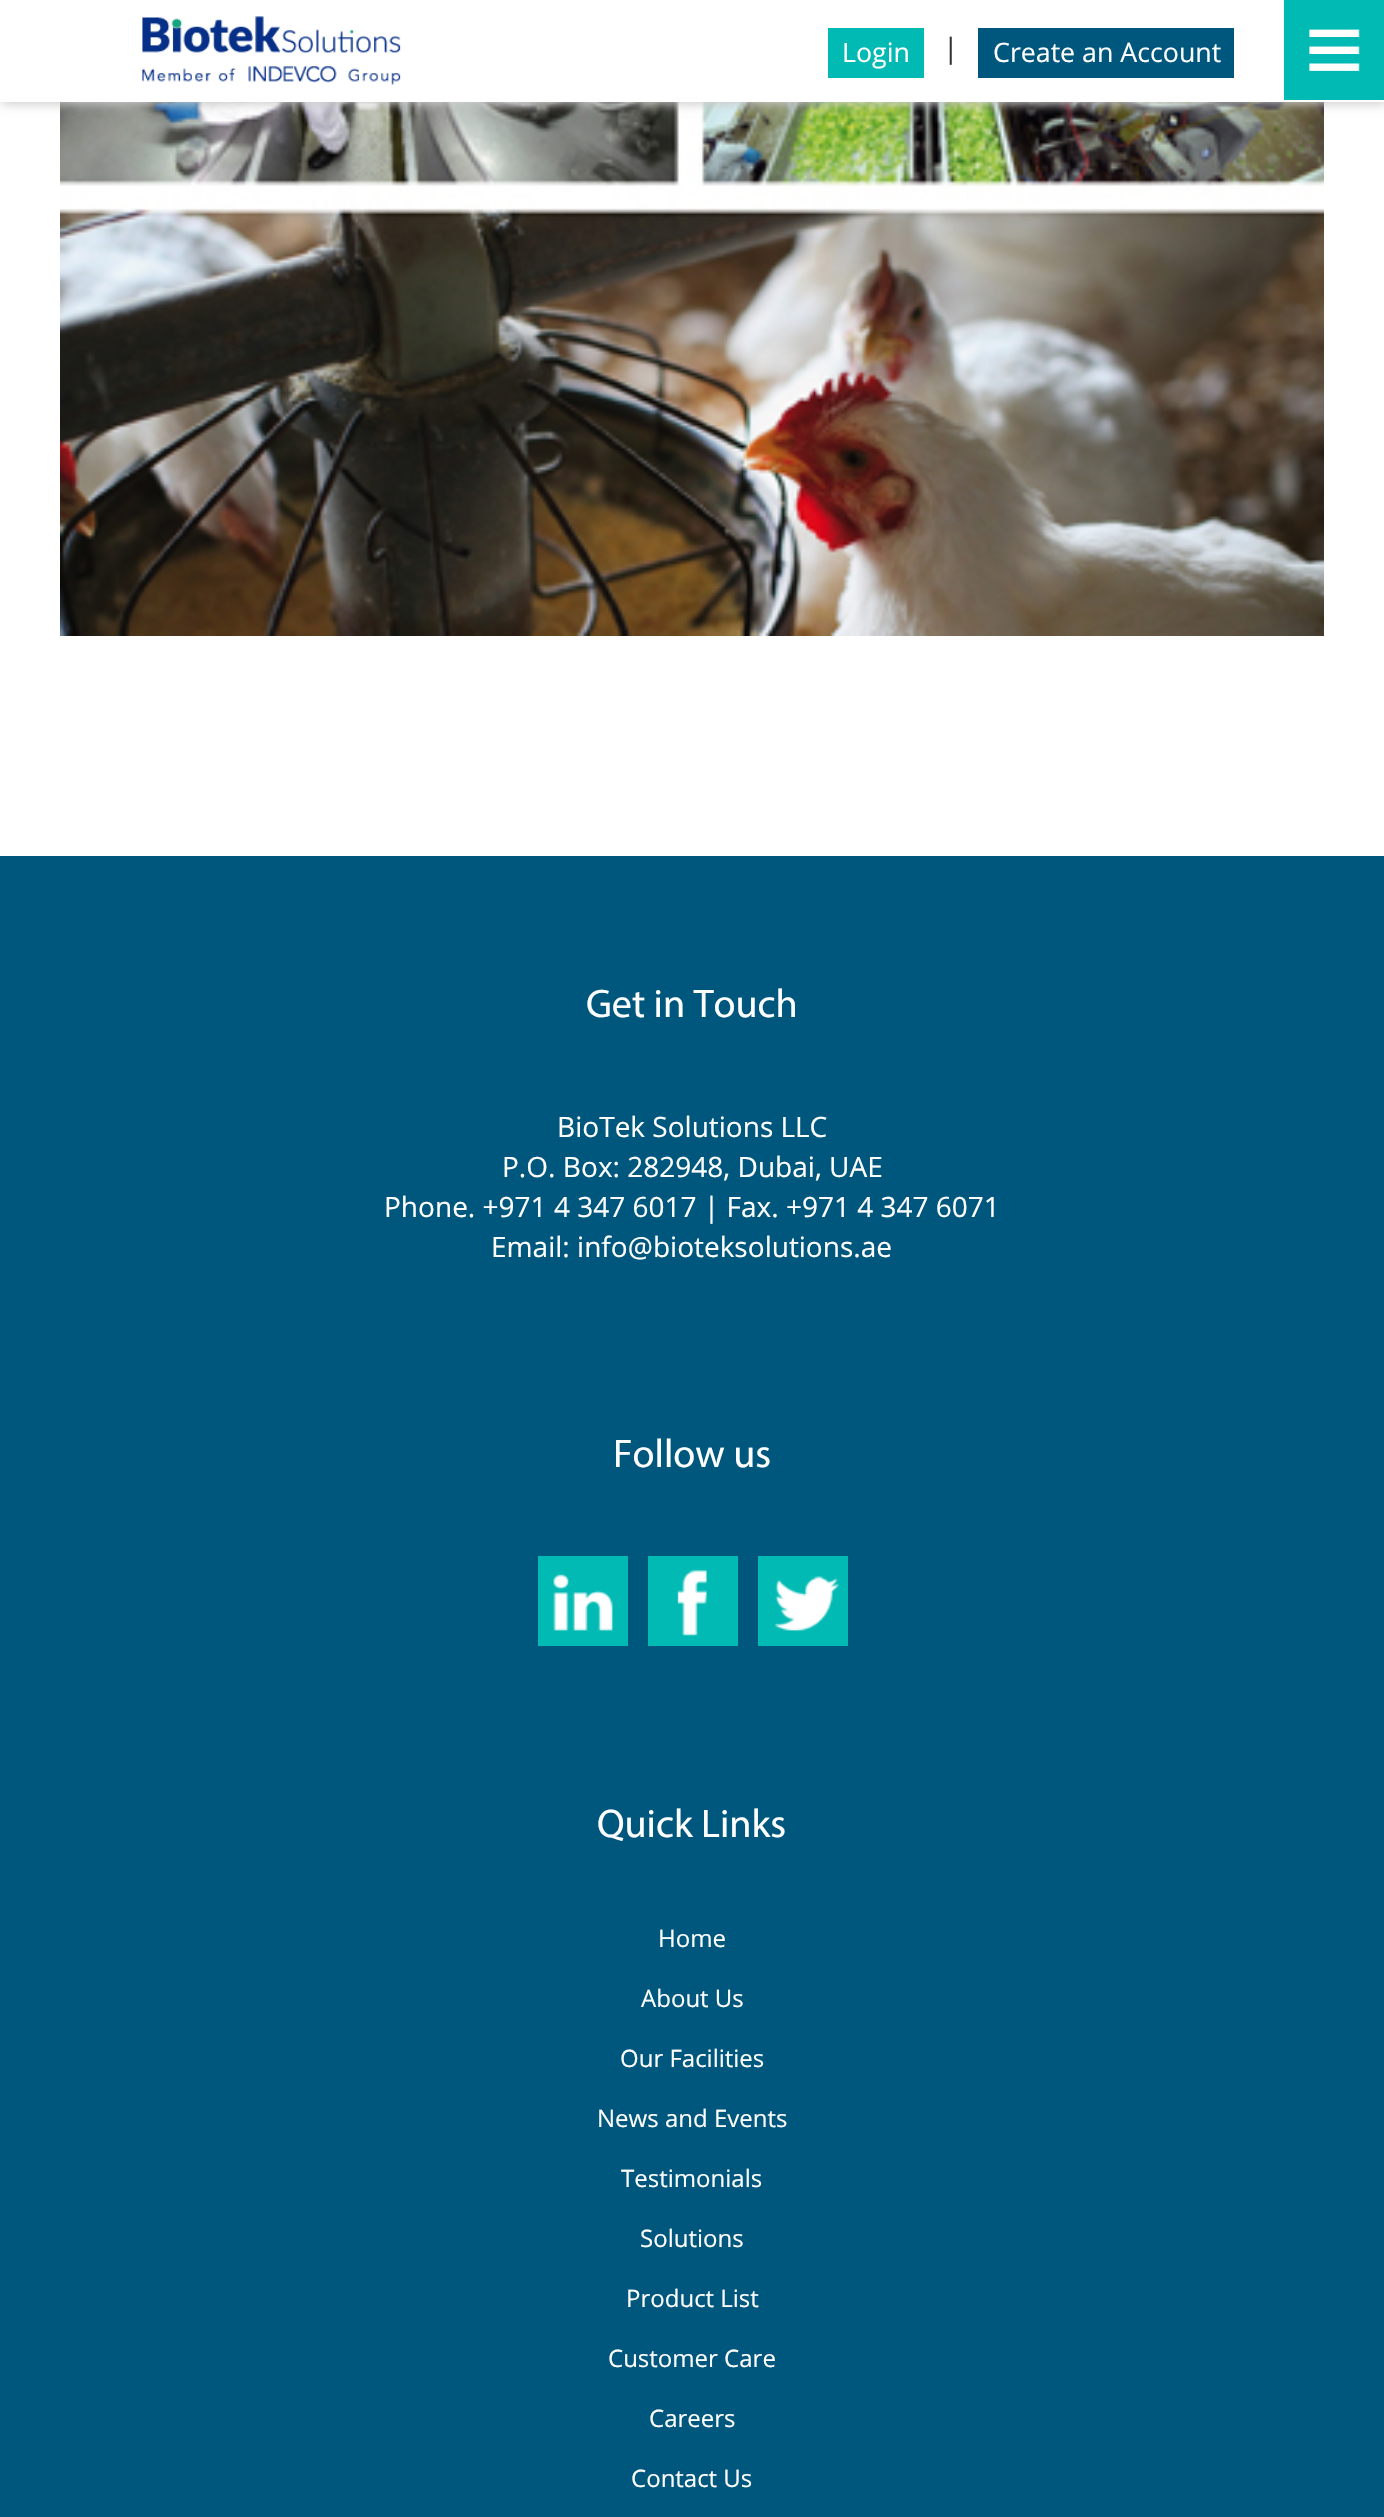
void draw(SkCanvas* canvas) {
    SkPaint paint;
    paint.setAntiAlias(true);
    auto face = [&](const char* family, int weight, float size, bool italic = false) {
        SkFontStyle style(weight, SkFontStyle::kNormal_Width,
            italic ? SkFontStyle::kItalic_Slant : SkFontStyle::kUpright_Slant);
        SkFont result(fontMgr->matchFamilyStyle(family, style), size);
        result.setSubpixel(true);
        return result;
    };
    auto write = [&](const char* s, float x, float y, const SkFont& font, SkColor color) {
        SkPaint ink(SkColor4f::FromColor(color));
        ink.setAntiAlias(true);
        canvas->drawString(s, x, y, font, ink);
    };
    auto block = [&](float x, float y, float w, float h, SkColor color) {
        SkPaint ink(SkColor4f::FromColor(color));
        ink.setAntiAlias(true);
        canvas->drawRect(SkRect::MakeXYWH(x, y, w, h), ink);
    };
    auto paste = [&](const char* path, float x, float y, float w, float h) {
        auto image = SkImages::DeferredFromEncodedData(SkData::MakeFromFileName(path));
        canvas->drawImageRect(image, SkRect::MakeXYWH(x, y, w, h), SkSamplingOptions());
    };
    canvas->clear(SK_ColorWHITE);
    paste("pic3.png", 60, 102, 1264, 534);
    paint.setColor(SkColorSetRGB(204, 204, 204));
    paint.setMaskFilter(SkMaskFilter::MakeBlur(kNormal_SkBlurStyle, 5));
    canvas->drawRect(SkRect::MakeXYWH(2, 2, 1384, 102), paint);
    paint.setMaskFilter(nullptr);
    block(0, 0, 1384, 102, SK_ColorWHITE);
    paste("pic1.png", 142, 16, 259, 69);
    block(1284, 0, 100, 100, SkColorSetRGB(0, 186, 179));
    paste("pic2.png", 1309, 29, 51, 42);
    block(828, 28, 96, 50, SkColorSetRGB(0, 186, 179));
    auto kFont1 = face("Open Sans", 400, 26.75f);
    write("Login", 842, 62, kFont1, SK_ColorWHITE);
    auto kFont2 = face("Open Sans", 400, 28);
    write("|", 943, 58, kFont2, SkColorSetRGB(51, 51, 51));
    block(978, 28, 256, 50, SkColorSetRGB(0, 87, 125));
    write("Create an Account", 993, 62, kFont1, SK_ColorWHITE);
    block(0, 856, 1384, 1661, SkColorSetRGB(0, 87, 125));
    auto kFont3 = face("Myriad", 400, 40);
    write("Get in Touch", 586, 1017, kFont3, SK_ColorWHITE);
    write("BioTek Solutions LLC", 557, 1137, kFont2, SK_ColorWHITE);
    write("P.O. Box: 282948, Dubai, UAE", 502, 1177, kFont2, SK_ColorWHITE);
    write("Phone. +971 4 347 6017 | Fax. +971 4 347 6071", 384, 1217, kFont2, SK_ColorWHITE);
    write("Email: info@bioteksolutions.ae", 491, 1257, kFont2, SK_ColorWHITE);
    write("Follow us", 613, 1467, kFont3, SK_ColorWHITE);
    paste("pic4.png", 538, 1556, 90, 90);
    paste("pic5.png", 648, 1556, 90, 90);
    paste("pic6.png", 758, 1556, 90, 90);
    write("Quick Links", 597, 1837, kFont3, SK_ColorWHITE);
    auto kFont4 = face("Open Sans", 400, 24);
    write("Home", 658, 1947, kFont4, SK_ColorWHITE);
    write("About Us", 641, 2007, kFont4, SK_ColorWHITE);
    write("Our Facilities", 620, 2067, kFont4, SK_ColorWHITE);
    write("News and Events", 597, 2127, kFont4, SK_ColorWHITE);
    write("Testimonials", 621, 2187, kFont4, SK_ColorWHITE);
    write("Solutions", 640, 2247, kFont4, SK_ColorWHITE);
    write("Product List", 626, 2307, kFont4, SK_ColorWHITE);
    write("Customer Care", 608, 2367, kFont4, SK_ColorWHITE);
    write("Careers", 649, 2427, kFont4, SK_ColorWHITE);
    write("Contact Us", 631, 2487, kFont4, SK_ColorWHITE);
}
